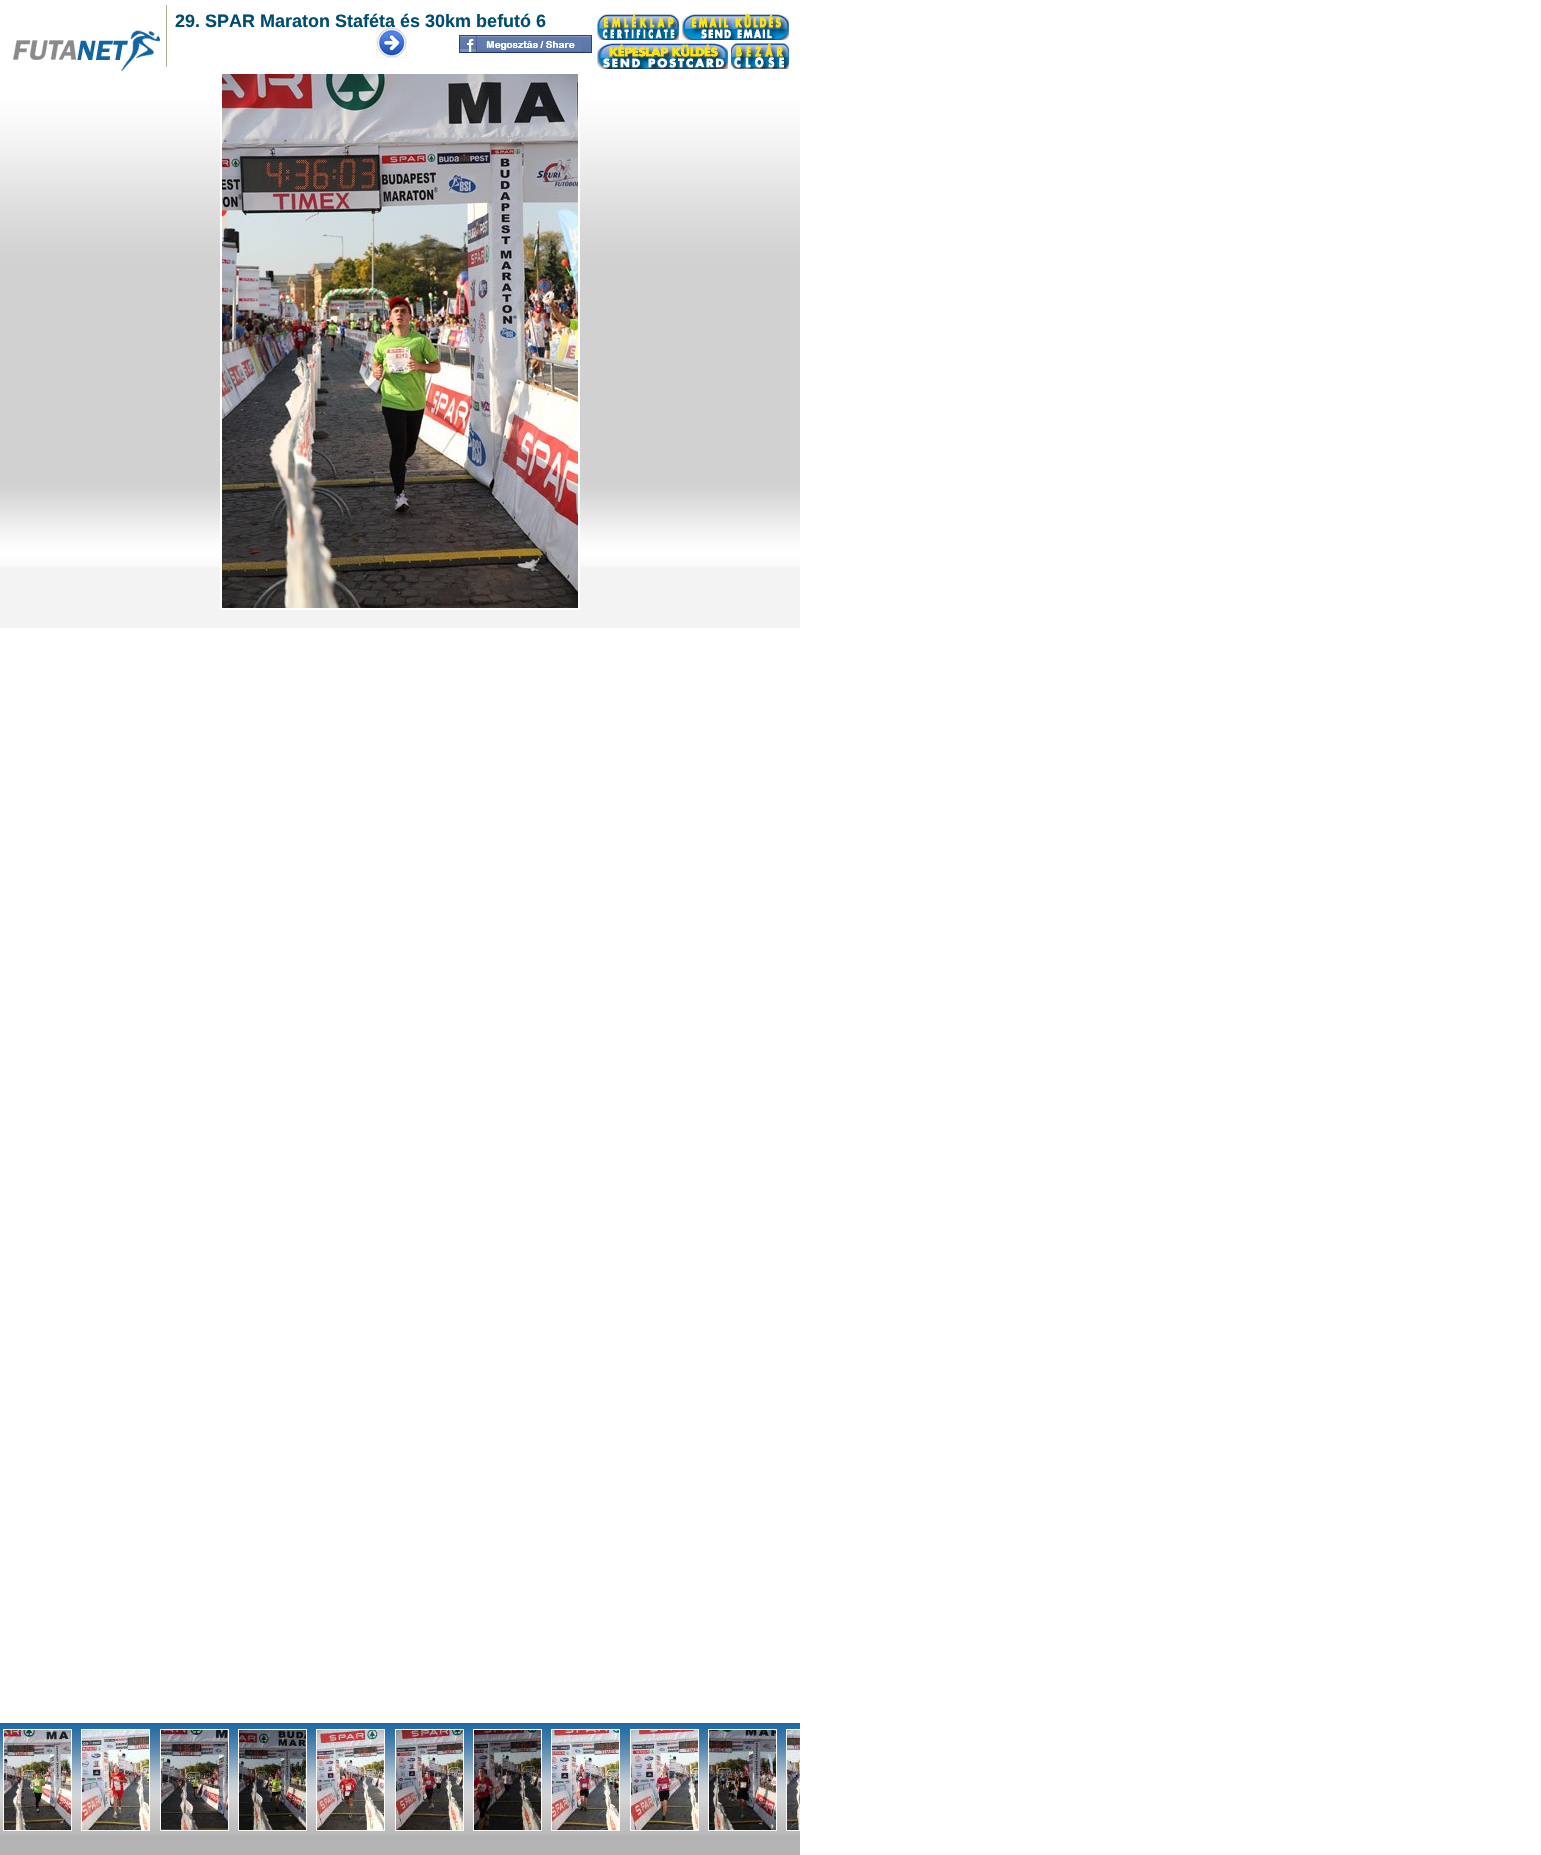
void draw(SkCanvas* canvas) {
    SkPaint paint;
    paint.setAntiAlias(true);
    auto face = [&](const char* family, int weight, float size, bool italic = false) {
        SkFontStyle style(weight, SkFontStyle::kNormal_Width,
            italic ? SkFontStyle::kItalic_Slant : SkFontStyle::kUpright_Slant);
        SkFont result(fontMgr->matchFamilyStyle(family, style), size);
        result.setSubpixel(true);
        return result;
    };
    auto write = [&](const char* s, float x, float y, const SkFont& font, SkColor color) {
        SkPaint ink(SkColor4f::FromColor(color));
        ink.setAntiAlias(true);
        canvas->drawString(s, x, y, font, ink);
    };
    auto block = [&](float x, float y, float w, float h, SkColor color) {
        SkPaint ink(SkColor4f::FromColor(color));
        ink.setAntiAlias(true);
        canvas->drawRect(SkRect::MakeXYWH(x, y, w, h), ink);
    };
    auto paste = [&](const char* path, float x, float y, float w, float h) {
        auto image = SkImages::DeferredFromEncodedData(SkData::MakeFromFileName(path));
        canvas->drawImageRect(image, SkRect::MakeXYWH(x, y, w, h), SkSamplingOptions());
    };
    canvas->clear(SK_ColorWHITE);
    paste("pic1.png", 13, 5, 154, 66);
    auto kFont1 = face("Liberation Sans", 700, 18);
    write("29. SPAR Maraton Staféta és 30km befutó 6", 175, 27, kFont1, SkColorSetRGB(1, 77, 113));
    paste("pic2.png", 597, 14, 82, 26);
    paste("pic3.png", 682, 14, 107, 26);
    paste("pic4.png", 597, 43, 131, 26);
    paste("pic5.png", 731, 43, 58, 26);
    paste("pic6.png", 376, 28, 31, 30);
    paste("pic7.png", 459, 35, 133, 18);
    block(0, 567, 800, 61, SkColorSetRGB(243, 243, 243));
    paste("pic8.png", 0, 72, 800, 495);
    paint.setStyle(SkPaint::kStroke_Style);
    paint.setStrokeWidth(2);
    paint.setColor(SK_ColorWHITE);
    canvas->drawRect(SkRect::MakeXYWH(221, 73, 358, 536), paint);
    paste("pic9.png", 222, 74, 356, 534);
    block(0, 1835, 800, 20, SkColorSetRGB(180, 180, 180));
    paste("pic10.png", 0, 1723, 800, 112);
    paint.setStrokeWidth(1);
    paint.setColor(SkColorSetRGB(250, 250, 250));
    canvas->drawRect(SkRect::MakeXYWH(3.5f, 1729.5f, 68, 101), paint);
    canvas->drawRect(SkRect::MakeXYWH(81.5f, 1729.5f, 68, 101), paint);
    canvas->drawRect(SkRect::MakeXYWH(160.5f, 1729.5f, 68, 101), paint);
    canvas->drawRect(SkRect::MakeXYWH(238.5f, 1729.5f, 68, 101), paint);
    canvas->drawRect(SkRect::MakeXYWH(316.5f, 1729.5f, 68, 101), paint);
    canvas->drawRect(SkRect::MakeXYWH(395.5f, 1729.5f, 68, 101), paint);
    canvas->drawRect(SkRect::MakeXYWH(473.5f, 1729.5f, 68, 101), paint);
    canvas->drawRect(SkRect::MakeXYWH(551.5f, 1729.5f, 68, 101), paint);
    canvas->drawRect(SkRect::MakeXYWH(630.5f, 1729.5f, 68, 101), paint);
    canvas->drawRect(SkRect::MakeXYWH(708.5f, 1729.5f, 68, 101), paint);
    canvas->save();
    canvas->clipRect(SkRect::MakeXYWH(0, 1723, 800, 132));
    canvas->drawRect(SkRect::MakeXYWH(786.5f, 1729.5f, 68, 101), paint);
    canvas->restore();
    paste("pic11.png", 4, 1730, 67, 100);
    paste("pic12.png", 82, 1730, 67, 100);
    paste("pic13.png", 161, 1730, 67, 100);
    paste("pic14.png", 239, 1730, 67, 100);
    paste("pic15.png", 317, 1730, 67, 100);
    paste("pic16.png", 396, 1730, 67, 100);
    paste("pic17.png", 474, 1730, 67, 100);
    paste("pic18.png", 552, 1730, 67, 100);
    paste("pic19.png", 631, 1730, 67, 100);
    paste("pic20.png", 709, 1730, 67, 100);
    paste("pic21.png", 787, 1730, 13, 100);
}
